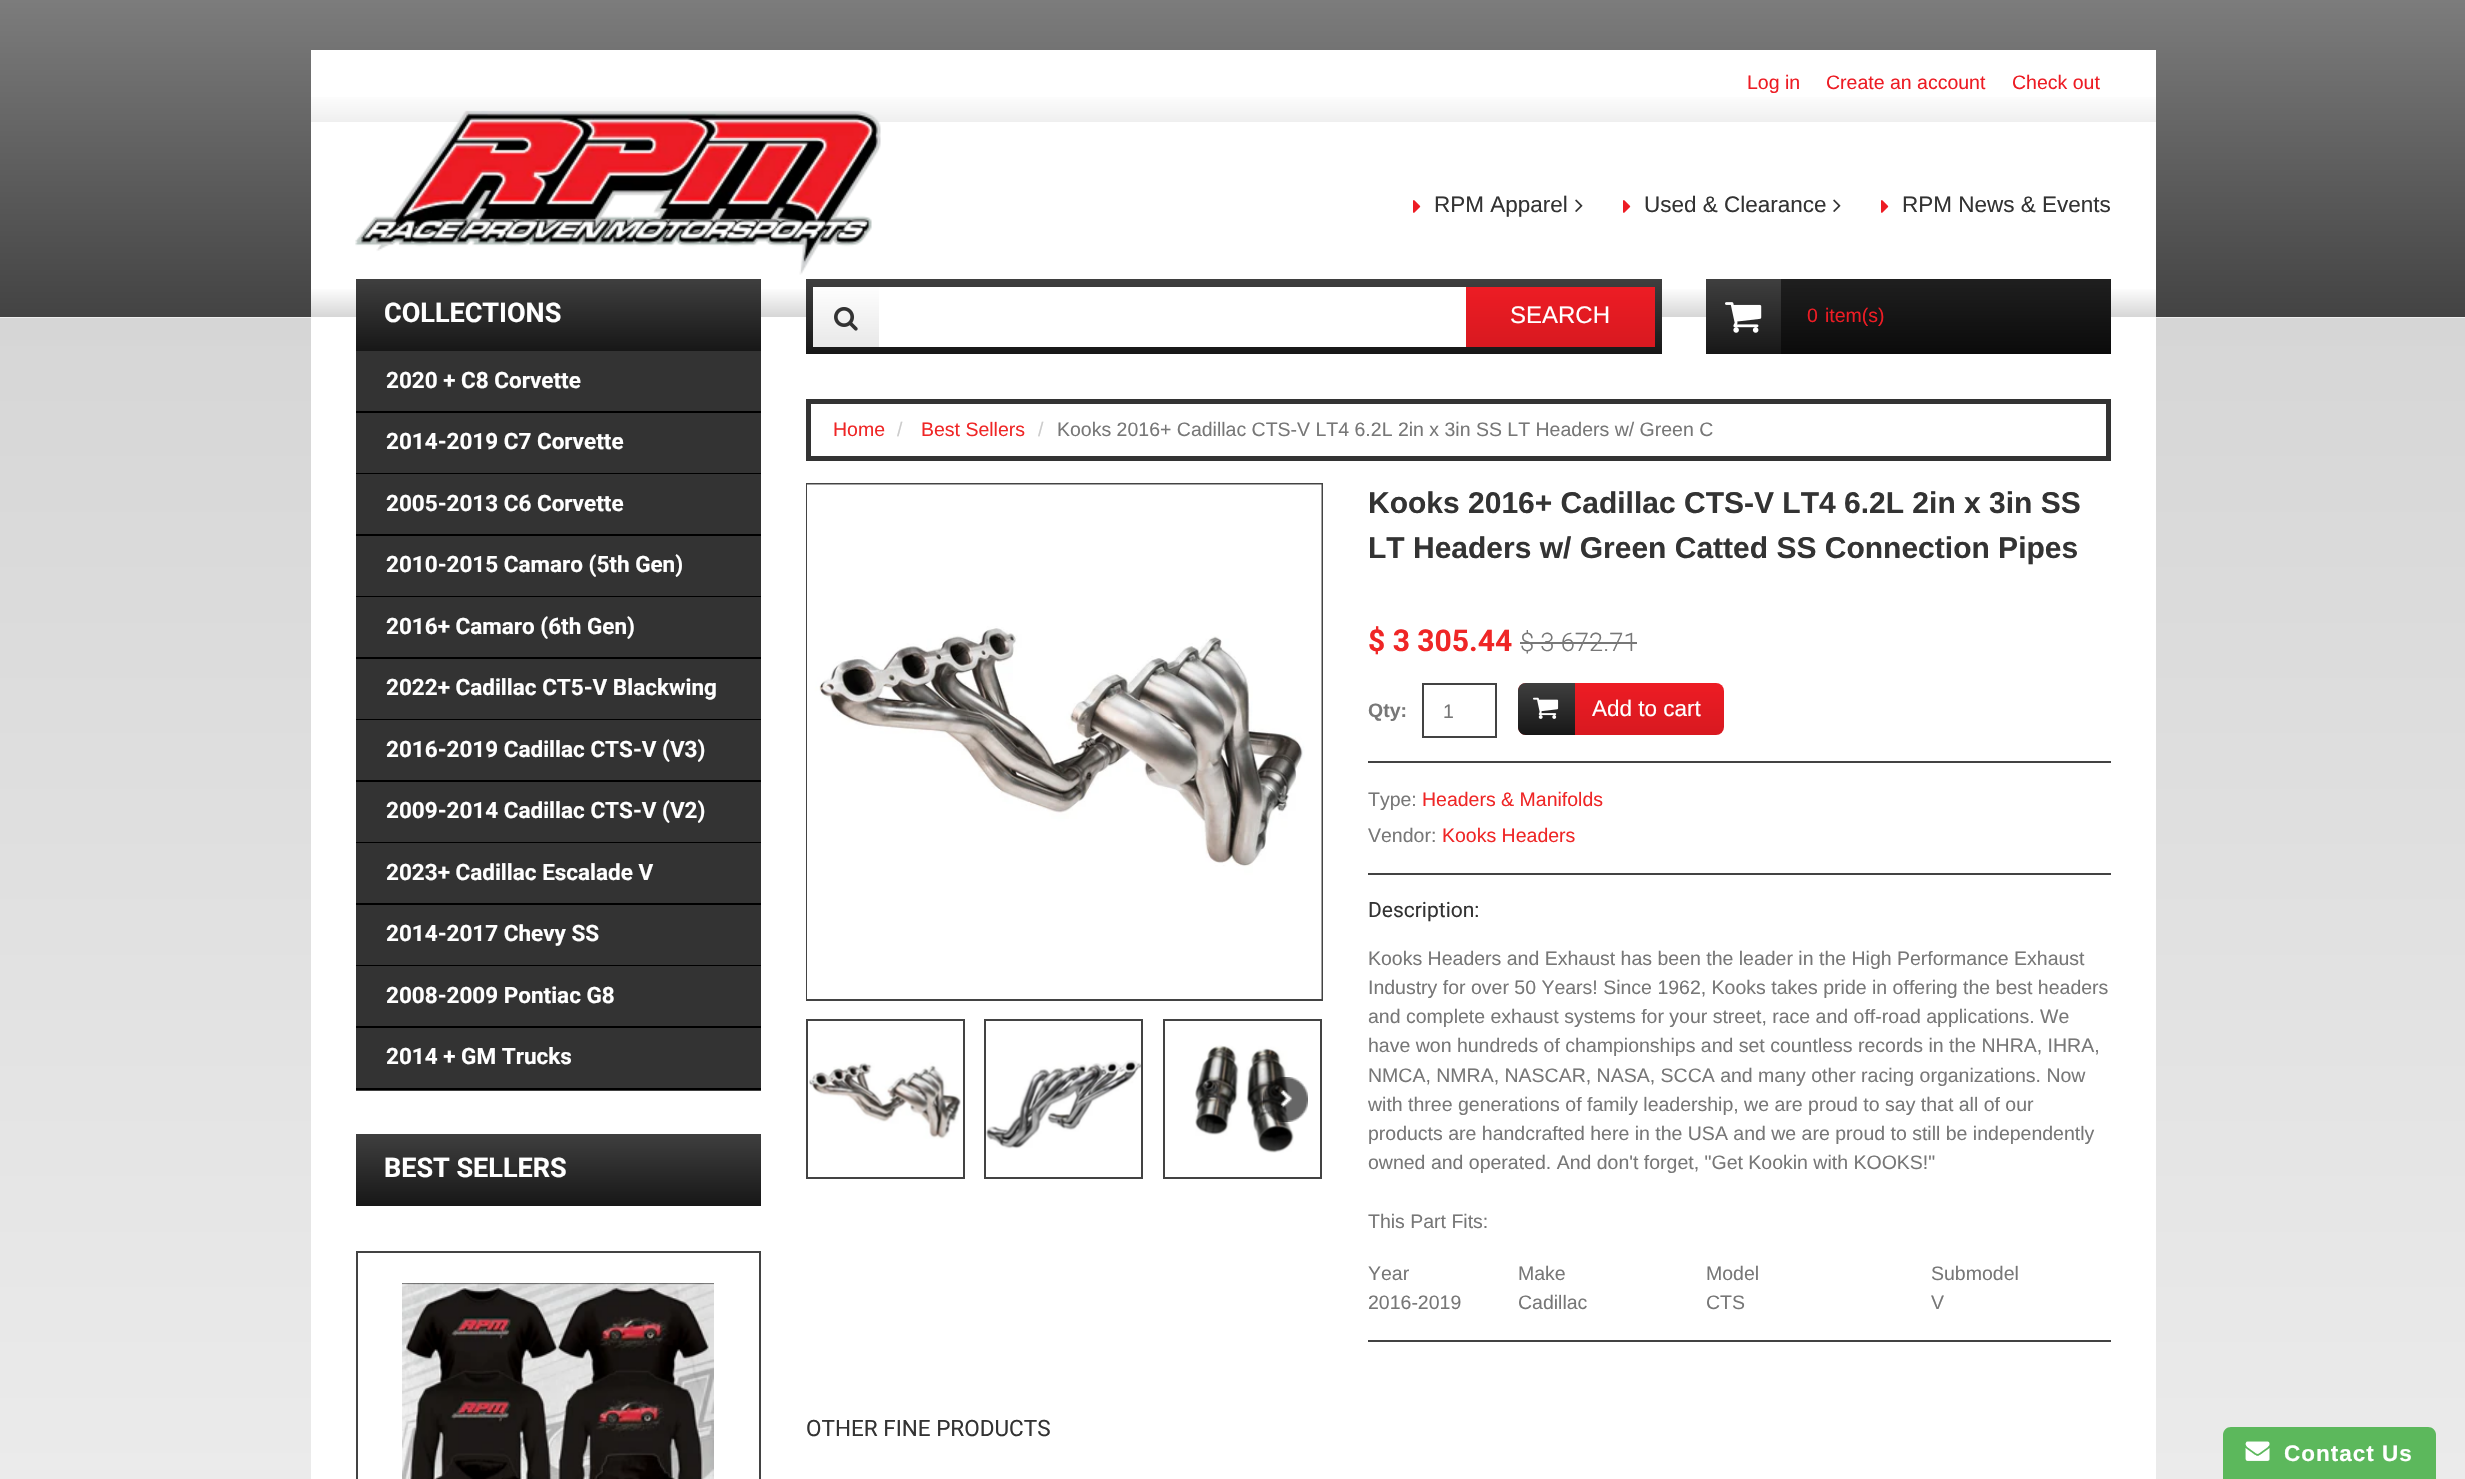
void draw(SkCanvas* canvas) {
    SkPaint paint;
    paint.setAntiAlias(true);
    auto face = [&](const char* family, int weight, float size, bool italic = false) {
        SkFontStyle style(weight, SkFontStyle::kNormal_Width,
            italic ? SkFontStyle::kItalic_Slant : SkFontStyle::kUpright_Slant);
        SkFont result(fontMgr->matchFamilyStyle(family, style), size);
        result.setSubpixel(true);
        return result;
    };
    auto write = [&](const char* s, float x, float y, const SkFont& font, SkColor color) {
        SkPaint ink(SkColor4f::FromColor(color));
        ink.setAntiAlias(true);
        canvas->drawString(s, x, y, font, ink);
    };
    auto writeSpaced = [&](const char* s, float x, float y, const SkFont& font, const SkPaint& ink, float letter, float word) {
        std::vector<SkGlyphID> glyphs(font.countText(s, strlen(s), SkTextEncoding::kUTF8));
        std::vector<float> xs(glyphs.size());
        font.textToGlyphs(s, strlen(s), SkTextEncoding::kUTF8, glyphs);
        font.getXPos(glyphs, xs, x);
        float extra = 0;
        for (size_t i = 0; i < glyphs.size(); i++) {
            xs[i] += extra;
            extra += letter + word * (glyphs[i] == font.unicharToGlyph(' '));
        }
        canvas->drawTextBlob(SkTextBlob::MakeFromPosHGlyphs(glyphs, xs, y, font), 0, 0, ink);
    };
    auto block = [&](float x, float y, float w, float h, SkColor color) {
        SkPaint ink(SkColor4f::FromColor(color));
        ink.setAntiAlias(true);
        canvas->drawRect(SkRect::MakeXYWH(x, y, w, h), ink);
    };
    auto paste = [&](const char* path, float x, float y, float w, float h) {
        auto image = SkImages::DeferredFromEncodedData(SkData::MakeFromFileName(path));
        canvas->drawImageRect(image, SkRect::MakeXYWH(x, y, w, h), SkSamplingOptions());
    };
    canvas->clear(SK_ColorWHITE);
    {
        const SkColor colors[] = {SkColorSetRGB(124, 124, 124), SkColorSetRGB(67, 67, 67)};
        const float stops[] = {0, 1};
        const SkPoint ends[] = {{1233, 0}, {1233, 317}};
        paint.setShader(SkGradientShader::MakeLinear(ends, colors, stops, 2, SkTileMode::kClamp));
        paint.setAlpha(255);
    }
    canvas->drawRect(SkRect::MakeXYWH(0, 0, 2465, 317), paint);
    block(0, 317, 2465, 1, SkColorSetRGB(238, 238, 238));
    block(311, 50, 1845, 229, SK_ColorWHITE);
    auto kFont1 = face("Liberation Sans", 400, 19.5f);
    write("Log in", 1747, 89, kFont1, SkColorSetRGB(237, 28, 36));
    write("Create an account", 1826, 89, kFont1, SkColorSetRGB(237, 28, 36));
    write("Check out", 2012, 89, kFont1, SkColorSetRGB(237, 28, 36));
    {
        const SkColor colors[] = {SK_ColorWHITE, SkColorSetRGB(239, 239, 239)};
        const float stops[] = {0, 1};
        const SkPoint ends[] = {{311, 92}, {311, 122}};
        paint.setShader(SkGradientShader::MakeLinear(ends, colors, stops, 2, SkTileMode::kClamp));
        paint.setAlpha(255);
    }
    canvas->drawRect(SkRect::MakeXYWH(311, 97, 1845, 25), paint);
    paste("pic1.png", 355, 110, 526, 165);
    paste("pic2.png", 1413, 200, 8, 13);
    auto kFont2 = face("Liberation Sans", 400, 22.5f);
    write("RPM Apparel", 1434, 212, kFont2, SkColorSetRGB(51, 51, 51));
    paste("pic3.png", 1575, 199, 8, 13);
    paste("pic2.png", 1623, 200, 8, 13);
    write("Used & Clearance", 1644, 212, kFont2, SkColorSetRGB(51, 51, 51));
    paste("pic3.png", 1833, 199, 8, 13);
    paste("pic2.png", 1881, 200, 8, 13);
    write("RPM News & Events", 1902, 212, kFont2, SkColorSetRGB(51, 51, 51));
    {
        const SkColor colors[] = {SkColorSetRGB(214, 214, 214), SkColorSetRGB(238, 238, 238)};
        const float stops[] = {0, 1};
        const SkPoint ends[] = {{1233, 318}, {1233, 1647}};
        paint.setShader(SkGradientShader::MakeLinear(ends, colors, stops, 2, SkTileMode::kClamp));
        paint.setAlpha(255);
    }
    canvas->drawRect(SkRect::MakeXYWH(0, 318, 2465, 1161), paint);
    block(311, 279, 1845, 1200, SK_ColorWHITE);
    {
        const SkColor colors[] = {SK_ColorWHITE, SkColorSetRGB(214, 214, 214)};
        const float stops[] = {0, 1};
        const SkPoint ends[] = {{311, 287}, {311, 317}};
        paint.setShader(SkGradientShader::MakeLinear(ends, colors, stops, 2, SkTileMode::kClamp));
        paint.setAlpha(255);
    }
    canvas->drawRect(SkRect::MakeXYWH(311, 289, 1845, 28), paint);
    {
        const SkColor colors[] = {SkColorSetRGB(63, 63, 63), SkColorSetRGB(23, 23, 23)};
        const float stops[] = {0, 1};
        const SkPoint ends[] = {{558, 279}, {558, 351}};
        paint.setShader(SkGradientShader::MakeLinear(ends, colors, stops, 2, SkTileMode::kClamp));
        paint.setAlpha(255);
    }
    canvas->drawRect(SkRect::MakeXYWH(356, 279, 405, 72), paint);
    auto kFont3 = face("Roboto", 700, 27);
    write("COLLECTIONS", 384, 322, kFont3, SK_ColorWHITE);
    block(356, 1090, 405, 1, SkColorSetRGB(67, 67, 67));
    block(356, 351, 405, 60, SkColorSetRGB(51, 51, 51));
    block(356, 411, 405, 2, SK_ColorBLACK);
    auto kFont4 = face("Roboto", 700, 22.5f);
    write("2020 + C8 Corvette", 386, 388, kFont4, SK_ColorWHITE);
    block(356, 413, 405, 60, SkColorSetRGB(51, 51, 51));
    block(356, 473, 405, 1, SK_ColorBLACK);
    write("2014-2019 C7 Corvette", 386, 449, kFont4, SK_ColorWHITE);
    block(356, 474, 405, 60, SkColorSetRGB(51, 51, 51));
    block(356, 534, 405, 2, SK_ColorBLACK);
    write("2005-2013 C6 Corvette", 386, 511, kFont4, SK_ColorWHITE);
    block(356, 536, 405, 60, SkColorSetRGB(51, 51, 51));
    block(356, 596, 405, 1, SK_ColorBLACK);
    write("2010-2015 Camaro (5th Gen)", 386, 572, kFont4, SK_ColorWHITE);
    block(356, 597, 405, 60, SkColorSetRGB(51, 51, 51));
    block(356, 657, 405, 2, SK_ColorBLACK);
    write("2016+ Camaro (6th Gen)", 386, 634, kFont4, SK_ColorWHITE);
    block(356, 659, 405, 60, SkColorSetRGB(51, 51, 51));
    block(356, 719, 405, 1, SK_ColorBLACK);
    write("2022+ Cadillac CT5-V Blackwing", 386, 695, kFont4, SK_ColorWHITE);
    block(356, 720, 405, 60, SkColorSetRGB(51, 51, 51));
    block(356, 780, 405, 2, SK_ColorBLACK);
    write("2016-2019 Cadillac CTS-V (V3)", 386, 757, kFont4, SK_ColorWHITE);
    block(356, 782, 405, 60, SkColorSetRGB(51, 51, 51));
    block(356, 842, 405, 1, SK_ColorBLACK);
    write("2009-2014 Cadillac CTS-V (V2)", 386, 818, kFont4, SK_ColorWHITE);
    block(356, 843, 405, 60, SkColorSetRGB(51, 51, 51));
    block(356, 903, 405, 2, SK_ColorBLACK);
    write("2023+ Cadillac Escalade V", 386, 880, kFont4, SK_ColorWHITE);
    block(356, 905, 405, 60, SkColorSetRGB(51, 51, 51));
    block(356, 965, 405, 1, SK_ColorBLACK);
    write("2014-2017 Chevy SS", 386, 941, kFont4, SK_ColorWHITE);
    block(356, 966, 405, 60, SkColorSetRGB(51, 51, 51));
    block(356, 1026, 405, 2, SK_ColorBLACK);
    write("2008-2009 Pontiac G8", 386, 1003, kFont4, SK_ColorWHITE);
    block(356, 1028, 405, 60, SkColorSetRGB(51, 51, 51));
    block(356, 1088, 405, 2, SK_ColorBLACK);
    write("2014 + GM Trucks", 386, 1064, kFont4, SK_ColorWHITE);
    {
        const SkColor colors[] = {SkColorSetRGB(63, 63, 63), SkColorSetRGB(23, 23, 23)};
        const float stops[] = {0, 1};
        const SkPoint ends[] = {{558, 1134}, {558, 1206}};
        paint.setShader(SkGradientShader::MakeLinear(ends, colors, stops, 2, SkTileMode::kClamp));
        paint.setAlpha(255);
    }
    canvas->drawRect(SkRect::MakeXYWH(356, 1134, 405, 72), paint);
    write("BEST SELLERS", 384, 1177, kFont3, SK_ColorWHITE);
    paint.setStyle(SkPaint::kStroke_Style);
    paint.setStrokeWidth(2);
    paint.setShader(nullptr);
    paint.setColor(SkColorSetRGB(67, 67, 67));
    canvas->drawRect(SkRect::MakeXYWH(357, 1252, 403, 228), paint);
    paste("pic4.png", 402, 1283, 312, 196);
    paint.setStyle(SkPaint::kFill_Style);
    {
        const SkColor colors[] = {SkColorSetRGB(63, 63, 63), SkColorSetRGB(23, 23, 23)};
        const float stops[] = {0, 1};
        const SkPoint ends[] = {{1234, 279}, {1234, 354}};
        paint.setShader(SkGradientShader::MakeLinear(ends, colors, stops, 2, SkTileMode::kClamp));
        paint.setAlpha(255);
    }
    canvas->drawRect(SkRect::MakeXYWH(806, 279, 856, 75), paint);
    {
        const SkColor colors[] = {SkColorSetRGB(254, 254, 254), SkColorSetRGB(232, 232, 232)};
        const float stops[] = {0, 1};
        const SkPoint ends[] = {{846, 287}, {846, 347}};
        paint.setShader(SkGradientShader::MakeLinear(ends, colors, stops, 2, SkTileMode::kClamp));
        paint.setAlpha(255);
    }
    canvas->drawRect(SkRect::MakeXYWH(813, 287, 66, 60), paint);
    paste("pic5.png", 834, 307, 24, 24);
    block(879, 287, 587, 60, SK_ColorWHITE);
    {
        const SkColor colors[] = {SkColorSetRGB(237, 28, 36), SkColorSetRGB(216, 25, 32)};
        const float stops[] = {0, 1};
        const SkPoint ends[] = {{1560, 287}, {1560, 347}};
        paint.setShader(SkGradientShader::MakeLinear(ends, colors, stops, 2, SkTileMode::kClamp));
        paint.setAlpha(255);
    }
    canvas->drawRect(SkRect::MakeXYWH(1466, 287, 189, 60), paint);
    auto kFont5 = face("Liberation Sans", 400, 24);
    write("SEARCH", 1510, 323, kFont5, SK_ColorWHITE);
    {
        const SkColor colors[] = {SkColorSetRGB(31, 31, 31), SkColorSetRGB(11, 11, 11)};
        const float stops[] = {0, 1};
        const SkPoint ends[] = {{1908, 279}, {1908, 354}};
        paint.setShader(SkGradientShader::MakeLinear(ends, colors, stops, 2, SkTileMode::kClamp));
        paint.setAlpha(255);
    }
    canvas->drawRect(SkRect::MakeXYWH(1781, 279, 330, 75), paint);
    {
        const SkColor colors[] = {SkColorSetRGB(63, 63, 63), SkColorSetRGB(23, 23, 23)};
        const float stops[] = {0, 1};
        const SkPoint ends[] = {{1743, 279}, {1743, 354}};
        paint.setShader(SkGradientShader::MakeLinear(ends, colors, stops, 2, SkTileMode::kClamp));
        paint.setAlpha(255);
    }
    canvas->drawRect(SkRect::MakeXYWH(1706, 279, 75, 75), paint);
    paste("pic6.png", 1725, 302, 37, 31);
    write("0", 1807, 322, kFont1, SkColorSetRGB(237, 28, 36));
    write("item(s)", 1825, 322, kFont1, SkColorSetRGB(237, 28, 36));
    paint.setStyle(SkPaint::kStroke_Style);
    paint.setStrokeWidth(5);
    paint.setShader(nullptr);
    paint.setColor(SkColorSetRGB(51, 51, 51));
    canvas->drawRect(SkRect::MakeXYWH(808.5f, 401.5f, 1300, 57), paint);
    write("Home", 833, 436, kFont1, SkColorSetRGB(239, 38, 38));
    write("/", 897, 436, kFont1, SkColorSetRGB(204, 204, 204));
    write("Best Sellers", 921, 436, kFont1, SkColorSetRGB(239, 38, 38));
    write("/", 1038, 436, kFont1, SkColorSetRGB(204, 204, 204));
    write("Kooks 2016+ Cadillac CTS-V LT4 6.2L 2in x 3in SS LT Headers w/ Green C", 1057, 436, kFont1, SkColorSetRGB(119, 119, 119));
    paint.setStrokeWidth(2);
    paint.setColor(SkColorSetRGB(67, 67, 67));
    canvas->drawRect(SkRect::MakeXYWH(807, 484, 515, 516), paint);
    paste("pic7.png", 807, 484, 515, 515);
    paste("pic8.png", 809, 1062, 152, 77);
    canvas->drawRect(SkRect::MakeXYWH(807, 1020, 157, 158), paint);
    paste("pic9.png", 986, 1060, 155, 89);
    canvas->drawRect(SkRect::MakeXYWH(985, 1020, 157, 158), paint);
    paste("pic10.png", 1195, 1045, 99, 108);
    canvas->drawRect(SkRect::MakeXYWH(1164, 1020, 157, 158), paint);
    paste("pic11.png", 1263, 1077, 45, 45);
    auto kFont6 = face("Liberation Sans", 700, 30);
    write("Kooks 2016+ Cadillac CTS-V LT4 6.2L 2in x 3in SS", 1368, 513, kFont6, SkColorSetRGB(51, 51, 51));
    write("LT Headers w/ Green Catted SS Connection Pipes", 1368, 558, kFont6, SkColorSetRGB(51, 51, 51));
    auto kFont7 = face("Roboto", 700, 30);
    write("$ 3 305.44", 1368, 651, kFont7, SkColorSetRGB(239, 38, 38));
    auto kFont8 = face("Roboto", 300, 25.5f);
    write("$ 3 672.71", 1520, 651, kFont8, SkColorSetRGB(119, 119, 119));
    block(1520, 642, 117, 2, SkColorSetRGB(119, 119, 119));
    auto kFont9 = face("Liberation Sans", 700, 19.5f);
    write("Qty:", 1368, 717, kFont9, SkColorSetRGB(119, 119, 119));
    canvas->drawRect(SkRect::MakeXYWH(1423, 684, 73, 53), paint);
    write("1", 1443, 718, kFont1, SkColorSetRGB(119, 119, 119));
    paint.setStyle(SkPaint::kFill_Style);
    {
        const SkColor colors[] = {SkColorSetRGB(237, 28, 36), SkColorSetRGB(216, 25, 32)};
        const float stops[] = {0, 1};
        const SkPoint ends[] = {{1621, 683}, {1621, 735}};
        paint.setShader(SkGradientShader::MakeLinear(ends, colors, stops, 2, SkTileMode::kClamp));
        paint.setAlpha(255);
    }
    canvas->drawRoundRect(SkRect::MakeXYWH(1518, 683, 206, 52), 8, 8, paint);
    {
        const SkColor colors[] = {SkColorSetRGB(63, 63, 63), SkColorSetRGB(23, 23, 23)};
        const float stops[] = {0, 1};
        const SkPoint ends[] = {{1547, 683}, {1547, 735}};
        paint.setShader(SkGradientShader::MakeLinear(ends, colors, stops, 2, SkTileMode::kClamp));
        paint.setAlpha(255);
    }
    canvas->drawPath(SkPathBuilder().moveTo(1526, 683).lineTo(1575, 683).lineTo(1575, 735).lineTo(1526, 735).cubicTo(1521.5f, 735, 1518, 731.5f, 1518, 727).lineTo(1518, 691).cubicTo(1518, 686.5f, 1521.5f, 683, 1526, 683).close().detach(), paint);
    paste("pic12.png", 1533, 697, 26, 22);
    write("Add to cart", 1592, 716, kFont2, SK_ColorWHITE);
    block(1368, 761, 743, 2, SkColorSetRGB(67, 67, 67));
    block(1368, 873, 743, 2, SkColorSetRGB(67, 67, 67));
    write("Type:", 1368, 806, kFont1, SkColorSetRGB(119, 119, 119));
    write("Headers & Manifolds", 1422, 806, kFont1, SkColorSetRGB(239, 38, 38));
    write("Vendor:", 1368, 842, kFont1, SkColorSetRGB(119, 119, 119));
    write("Kooks Headers", 1442, 842, kFont1, SkColorSetRGB(239, 38, 38));
    auto kFont10 = face("Roboto", 400, 21);
    write("Description:", 1368, 917, kFont10, SkColorSetRGB(51, 51, 51));
    write("Kooks Headers and Exhaust has been the leader in the High Performance Exhaust", 1368, 965, kFont1, SkColorSetRGB(119, 119, 119));
    write("Industry for over 50 Years! Since 1962, Kooks takes pride in offering the best headers", 1368, 994, kFont1, SkColorSetRGB(119, 119, 119));
    write("and complete exhaust systems for your street, race and off-road applications. We", 1368, 1023, kFont1, SkColorSetRGB(119, 119, 119));
    write("have won hundreds of championships and set countless records in the NHRA, IHRA,", 1368, 1052, kFont1, SkColorSetRGB(119, 119, 119));
    write("NMCA, NMRA, NASCAR, NASA, SCCA and many other racing organizations. Now", 1368, 1082, kFont1, SkColorSetRGB(119, 119, 119));
    write("with three generations of family leadership, we are proud to say that all of our", 1368, 1111, kFont1, SkColorSetRGB(119, 119, 119));
    write("products are handcrafted here in the USA and we are proud to still be independently", 1368, 1140, kFont1, SkColorSetRGB(119, 119, 119));
    write("owned and operated. And don't forget, \"Get Kookin with KOOKS!\"", 1368, 1169, kFont1, SkColorSetRGB(119, 119, 119));
    write("This Part Fits:", 1368, 1228, kFont1, SkColorSetRGB(119, 119, 119));
    write("Year", 1368, 1280, kFont1, SkColorSetRGB(119, 119, 119));
    write("Make", 1518, 1280, kFont1, SkColorSetRGB(119, 119, 119));
    write("Model", 1706, 1280, kFont1, SkColorSetRGB(119, 119, 119));
    write("Submodel", 1931, 1280, kFont1, SkColorSetRGB(119, 119, 119));
    write("2016-2019", 1368, 1309, kFont1, SkColorSetRGB(119, 119, 119));
    write("Cadillac", 1518, 1309, kFont1, SkColorSetRGB(119, 119, 119));
    write("CTS", 1706, 1309, kFont1, SkColorSetRGB(119, 119, 119));
    write("V", 1931, 1309, kFont1, SkColorSetRGB(119, 119, 119));
    block(1368, 1340, 743, 2, SkColorSetRGB(67, 67, 67));
    auto kFont11 = face("Roboto", 400, 22.5f);
    write("OTHER FINE PRODUCTS", 806, 1436, kFont11, SkColorSetRGB(51, 51, 51));
    paint.setShader(nullptr);
    paint.setColor(SkColorSetRGB(92, 184, 92));
    canvas->drawPath(SkPathBuilder().moveTo(2231, 1427).lineTo(2428, 1427).cubicTo(2432.5f, 1427, 2436, 1430.5f, 2436, 1435).lineTo(2436, 1479).lineTo(2223, 1479).lineTo(2223, 1435).cubicTo(2223, 1430.5f, 2226.5f, 1427, 2231, 1427).close().detach(), paint);
    paste("pic13.png", 2245, 1441, 25, 20);
    auto kFont12 = face("Liberation Sans", 700, 22.5f);
    paint.setColor(SK_ColorWHITE);
    writeSpaced("Contact Us", 2284, 1461, kFont12, paint, 1, 0);
}
